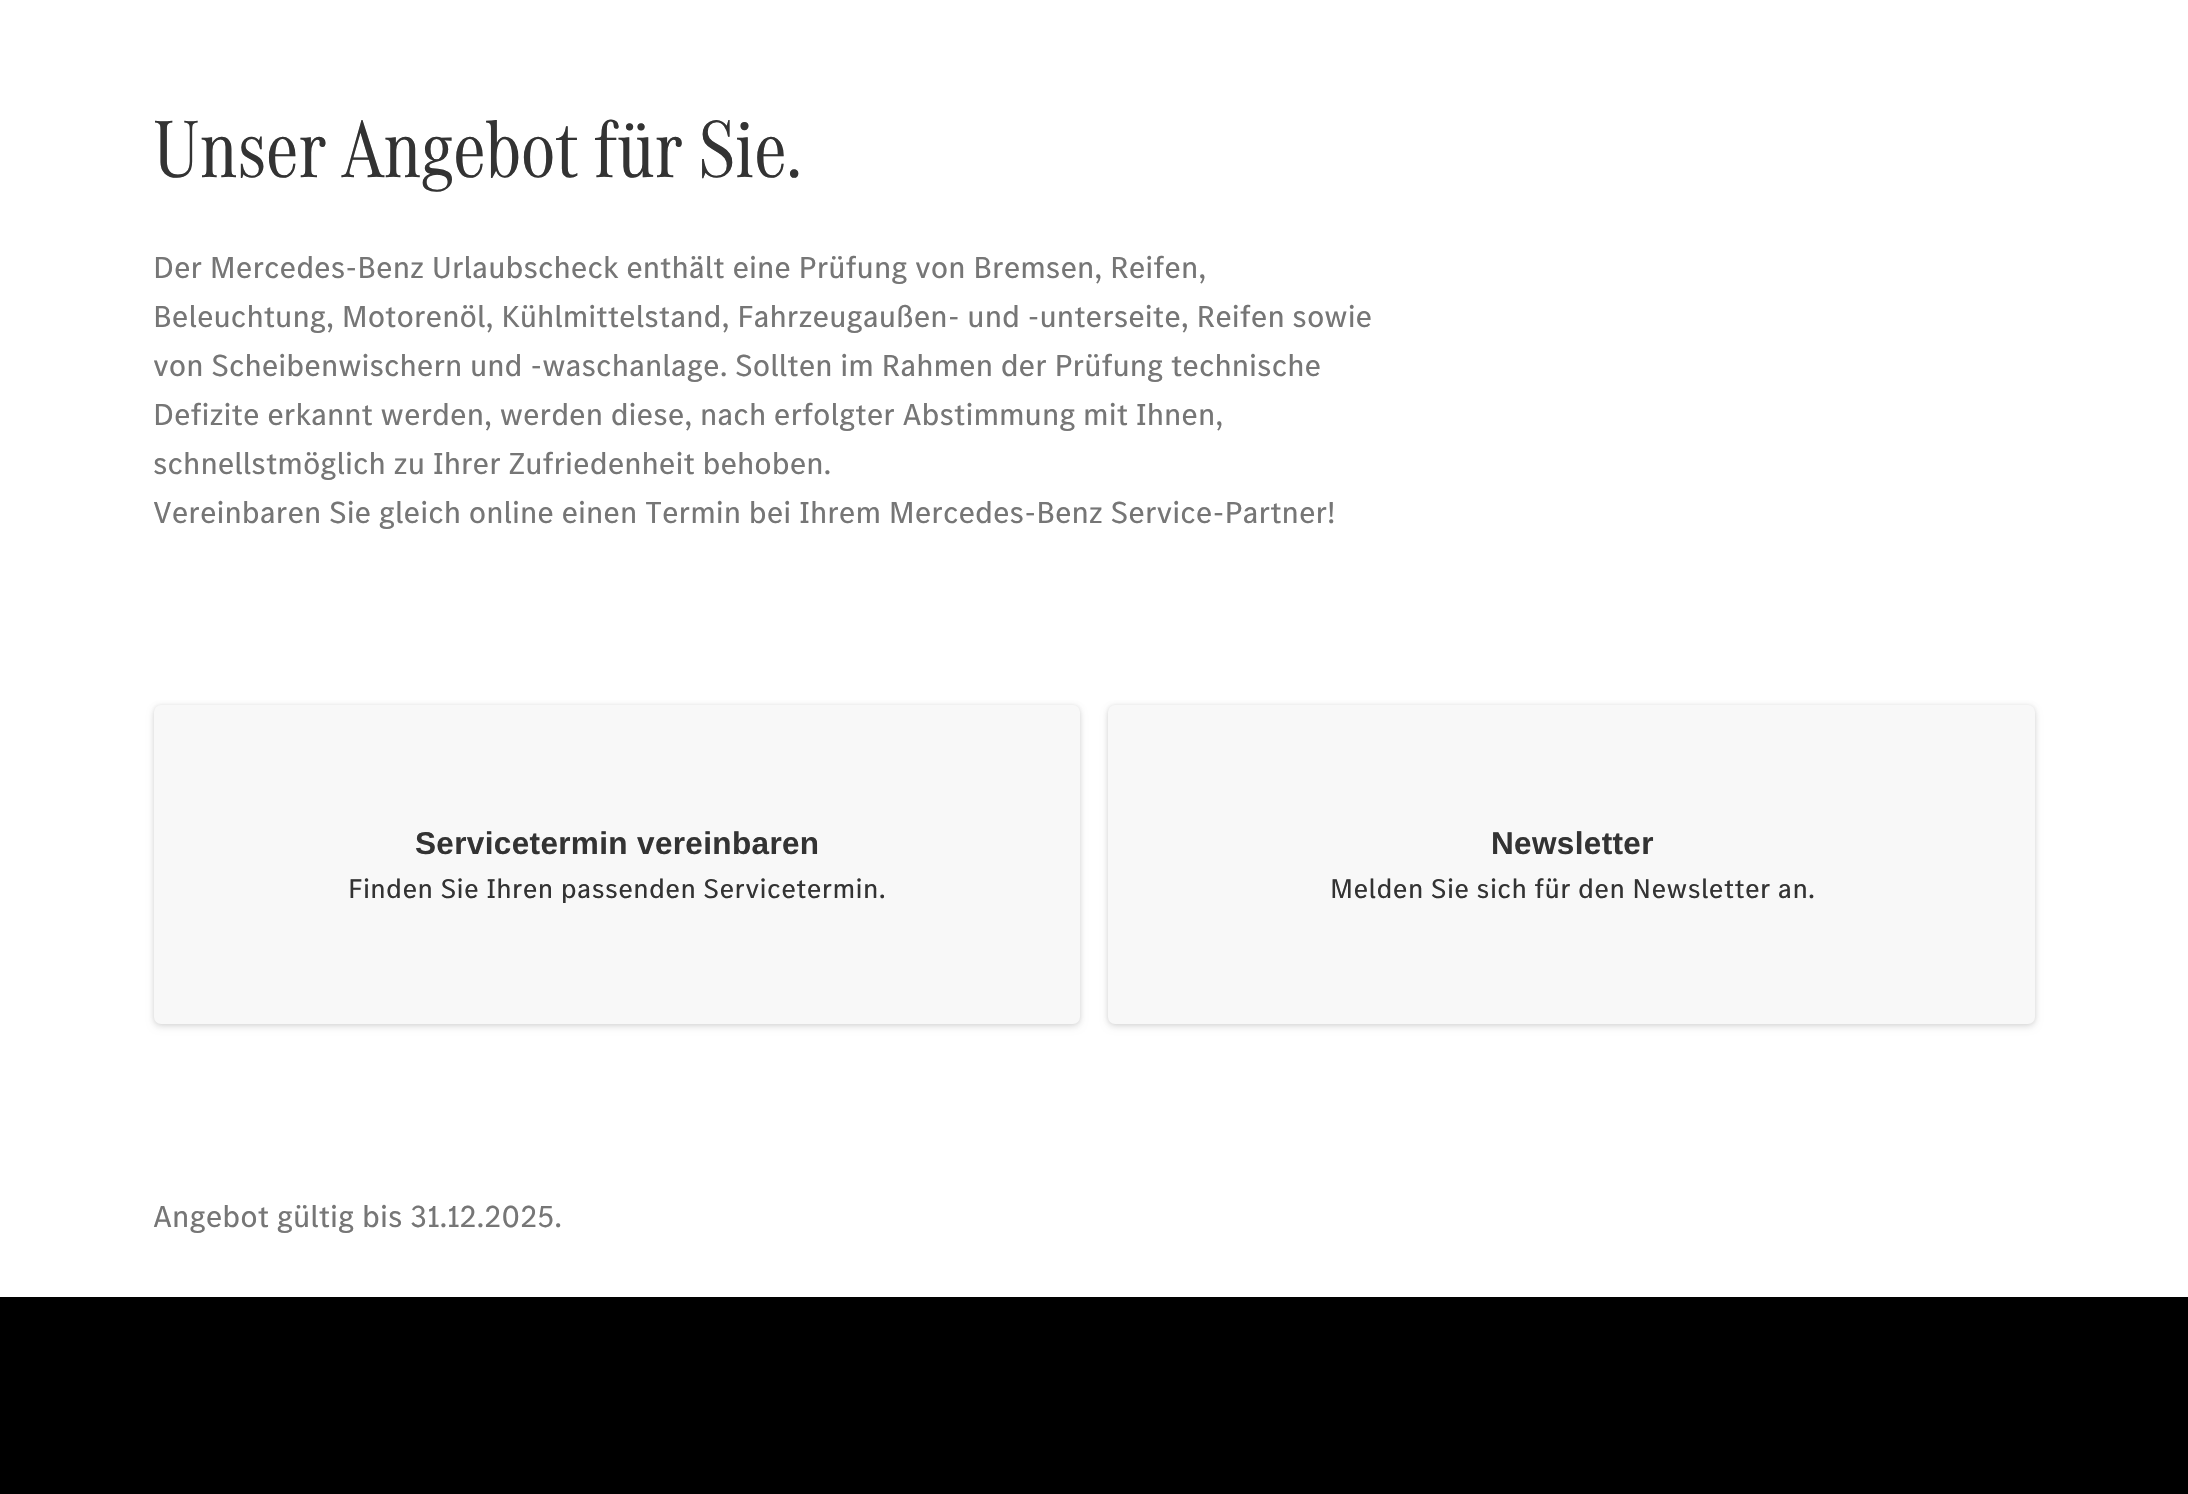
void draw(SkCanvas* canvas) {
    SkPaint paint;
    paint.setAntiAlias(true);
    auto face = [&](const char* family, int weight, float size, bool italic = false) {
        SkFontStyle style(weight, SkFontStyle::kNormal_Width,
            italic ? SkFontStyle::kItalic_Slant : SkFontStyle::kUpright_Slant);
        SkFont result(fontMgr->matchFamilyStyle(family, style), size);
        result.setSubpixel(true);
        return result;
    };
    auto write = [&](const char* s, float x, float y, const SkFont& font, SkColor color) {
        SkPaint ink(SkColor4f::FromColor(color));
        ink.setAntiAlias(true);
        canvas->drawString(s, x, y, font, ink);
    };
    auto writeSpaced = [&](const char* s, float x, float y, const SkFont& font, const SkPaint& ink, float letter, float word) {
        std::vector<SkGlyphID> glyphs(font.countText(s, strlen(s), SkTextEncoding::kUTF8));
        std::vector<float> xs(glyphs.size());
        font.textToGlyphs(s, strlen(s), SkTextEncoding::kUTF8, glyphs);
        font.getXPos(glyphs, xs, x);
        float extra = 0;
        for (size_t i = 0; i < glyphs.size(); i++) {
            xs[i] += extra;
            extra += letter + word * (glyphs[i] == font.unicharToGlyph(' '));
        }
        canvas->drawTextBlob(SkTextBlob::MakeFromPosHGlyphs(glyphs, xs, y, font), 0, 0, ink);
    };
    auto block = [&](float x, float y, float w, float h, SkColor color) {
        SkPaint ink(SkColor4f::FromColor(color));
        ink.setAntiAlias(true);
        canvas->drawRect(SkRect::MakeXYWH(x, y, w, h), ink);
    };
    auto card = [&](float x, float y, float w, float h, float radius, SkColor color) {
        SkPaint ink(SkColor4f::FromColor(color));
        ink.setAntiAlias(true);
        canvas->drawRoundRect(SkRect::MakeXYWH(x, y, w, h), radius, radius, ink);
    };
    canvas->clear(SK_ColorWHITE);
    auto kFont1 = face("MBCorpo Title", 400, 84);
    write("Unser Angebot für Sie.", 153, 177, kFont1, SkColorSetRGB(51, 51, 51));
    auto kFont2 = face("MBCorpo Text", 400, 31.5f);
    write("Der Mercedes-Benz Urlaubscheck enthält eine Prüfung von Bremsen, Reifen,", 153, 278, kFont2, SkColorSetRGB(118, 118, 118));
    write("Beleuchtung, Motorenöl, Kühlmittelstand, Fahrzeugaußen- und -unterseite, Reifen sowie", 153, 327, kFont2, SkColorSetRGB(118, 118, 118));
    write("von Scheibenwischern und -waschanlage. Sollten im Rahmen der Prüfung technische", 153, 376, kFont2, SkColorSetRGB(118, 118, 118));
    write("Defizite erkannt werden, werden diese, nach erfolgter Abstimmung mit Ihnen,", 153, 425, kFont2, SkColorSetRGB(118, 118, 118));
    write("schnellstmöglich zu Ihrer Zufriedenheit behoben.", 153, 474, kFont2, SkColorSetRGB(118, 118, 118));
    write("Vereinbaren Sie gleich online einen Termin bei Ihrem Mercedes-Benz Service-Partner!", 153, 523, kFont2, SkColorSetRGB(118, 118, 118));
    paint.setColor(SkColorSetARGB(26, 0, 0, 0));
    paint.setMaskFilter(SkMaskFilter::MakeBlur(kNormal_SkBlurStyle, 3.5f));
    canvas->drawRoundRect(SkRect::MakeXYWH(154, 709, 926, 318), 7, 7, paint);
    paint.setMaskFilter(nullptr);
    paint.setMaskFilter(SkMaskFilter::MakeBlur(kNormal_SkBlurStyle, 2));
    canvas->drawRoundRect(SkRect::MakeXYWH(154, 705, 926, 319), 7, 7, paint);
    paint.setMaskFilter(nullptr);
    card(154, 705, 926, 319, 7, SkColorSetRGB(248, 248, 248));
    auto kFont3 = face("Liberation Sans", 700, 31.5f);
    paint.setColor(SkColorSetRGB(51, 51, 51));
    writeSpaced("Servicetermin vereinbaren", 415, 854, kFont3, paint, 0.35f, 0);
    auto kFont4 = face("MBCorpo Text", 400, 28);
    writeSpaced("Finden Sie Ihren passenden Servicetermin.", 348, 898, kFont4, paint, 0.35f, 0);
    paint.setColor(SkColorSetARGB(26, 0, 0, 0));
    paint.setMaskFilter(SkMaskFilter::MakeBlur(kNormal_SkBlurStyle, 3.5f));
    canvas->drawRoundRect(SkRect::MakeXYWH(1108, 709, 927, 318), 7, 7, paint);
    paint.setMaskFilter(nullptr);
    paint.setMaskFilter(SkMaskFilter::MakeBlur(kNormal_SkBlurStyle, 2));
    canvas->drawRoundRect(SkRect::MakeXYWH(1108, 705, 927, 319), 7, 7, paint);
    paint.setMaskFilter(nullptr);
    card(1108, 705, 927, 319, 7, SkColorSetRGB(248, 248, 248));
    paint.setColor(SkColorSetRGB(51, 51, 51));
    writeSpaced("Newsletter", 1491, 854, kFont3, paint, 0.35f, 0);
    writeSpaced("Melden Sie sich für den Newsletter an.", 1330, 898, kFont4, paint, 0.35f, 0);
    write("Angebot gültig bis 31.12.2025.", 153, 1227, kFont2, SkColorSetRGB(118, 118, 118));
    block(0, 1297, 2188, 197, SK_ColorBLACK);
}
